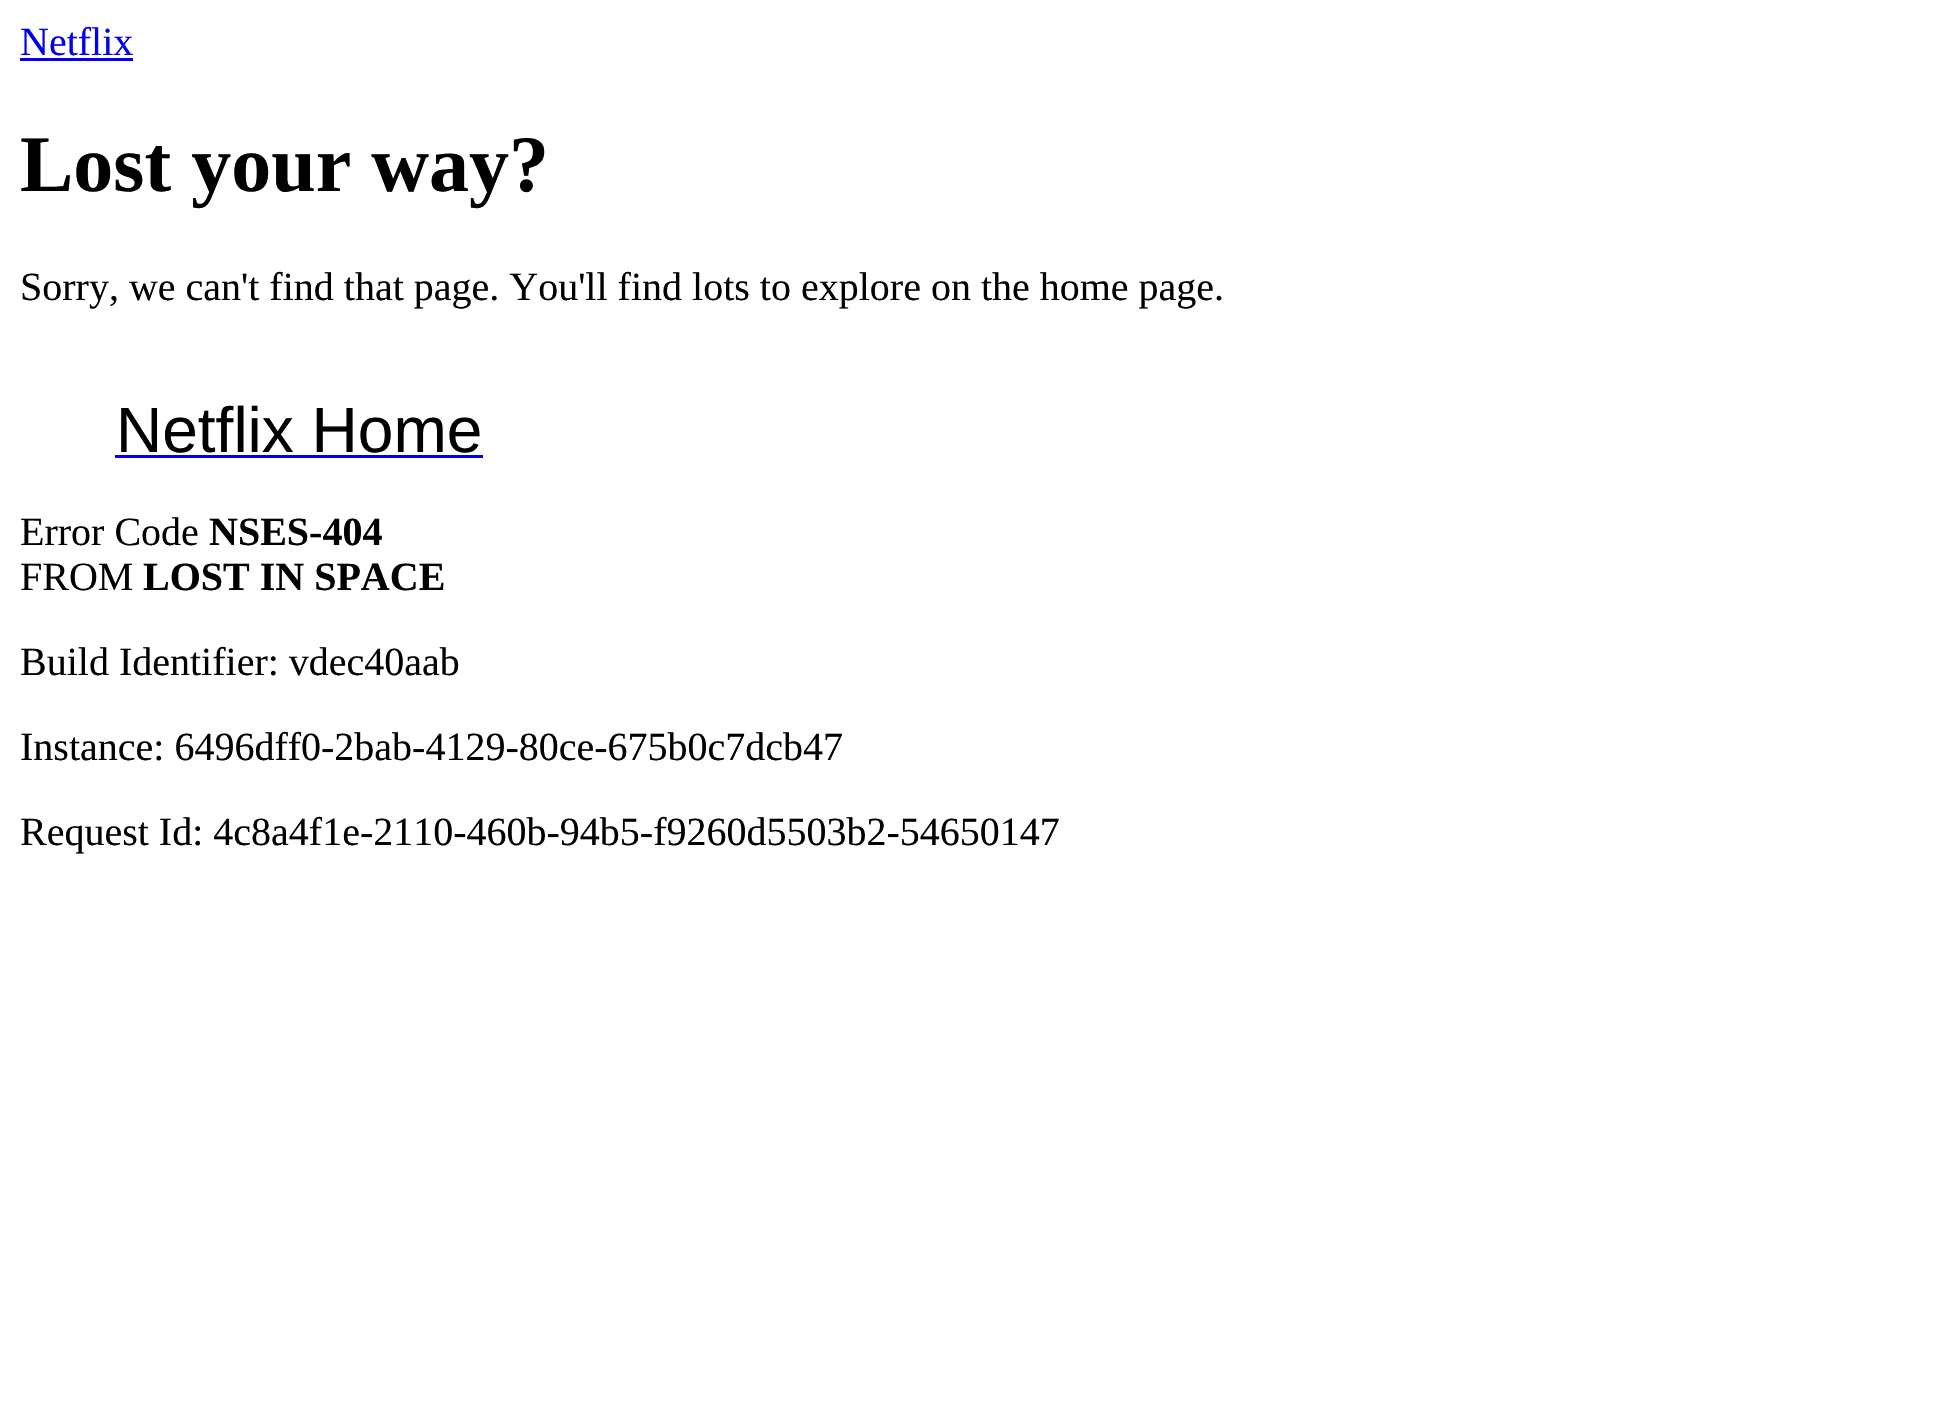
void draw(SkCanvas* canvas) {
    SkPaint paint;
    paint.setAntiAlias(true);
    auto face = [&](const char* family, int weight, float size, bool italic = false) {
        SkFontStyle style(weight, SkFontStyle::kNormal_Width,
            italic ? SkFontStyle::kItalic_Slant : SkFontStyle::kUpright_Slant);
        SkFont result(fontMgr->matchFamilyStyle(family, style), size);
        result.setSubpixel(true);
        return result;
    };
    auto write = [&](const char* s, float x, float y, const SkFont& font, SkColor color) {
        SkPaint ink(SkColor4f::FromColor(color));
        ink.setAntiAlias(true);
        canvas->drawString(s, x, y, font, ink);
    };
    auto block = [&](float x, float y, float w, float h, SkColor color) {
        SkPaint ink(SkColor4f::FromColor(color));
        ink.setAntiAlias(true);
        canvas->drawRect(SkRect::MakeXYWH(x, y, w, h), ink);
    };
    canvas->clear(SK_ColorWHITE);
    auto kFont1 = face("Liberation Serif", 400, 40);
    write("Netflix", 20, 55, kFont1, SkColorSetRGB(0, 0, 238));
    block(20, 58, 113, 3, SkColorSetRGB(0, 0, 238));
    auto kFont2 = face("Liberation Serif", 700, 80);
    write("Lost your way?", 20, 191, kFont2, SK_ColorBLACK);
    write("Sorry, we can't find that page. You'll find lots to explore on the home page.", 20, 300, kFont1, SK_ColorBLACK);
    auto kFont3 = face("Liberation Sans", 400, 64);
    write("Netflix Home", 116, 452, kFont3, SK_ColorBLACK);
    block(115, 455, 368, 3, SkColorSetRGB(0, 0, 238));
    write("Error Code", 20, 545, kFont1, SK_ColorBLACK);
    auto kFont4 = face("Liberation Serif", 700, 40);
    write("NSES-404", 209, 545, kFont4, SK_ColorBLACK);
    write("FROM", 20, 590, kFont1, SK_ColorBLACK);
    write("LOST IN SPACE", 143, 590, kFont4, SK_ColorBLACK);
    write("Build Identifier: vdec40aab", 20, 675, kFont1, SK_ColorBLACK);
    write("Instance: 6496dff0-2bab-4129-80ce-675b0c7dcb47", 20, 760, kFont1, SK_ColorBLACK);
    write("Request Id: 4c8a4f1e-2110-460b-94b5-f9260d5503b2-54650147", 20, 845, kFont1, SK_ColorBLACK);
}
